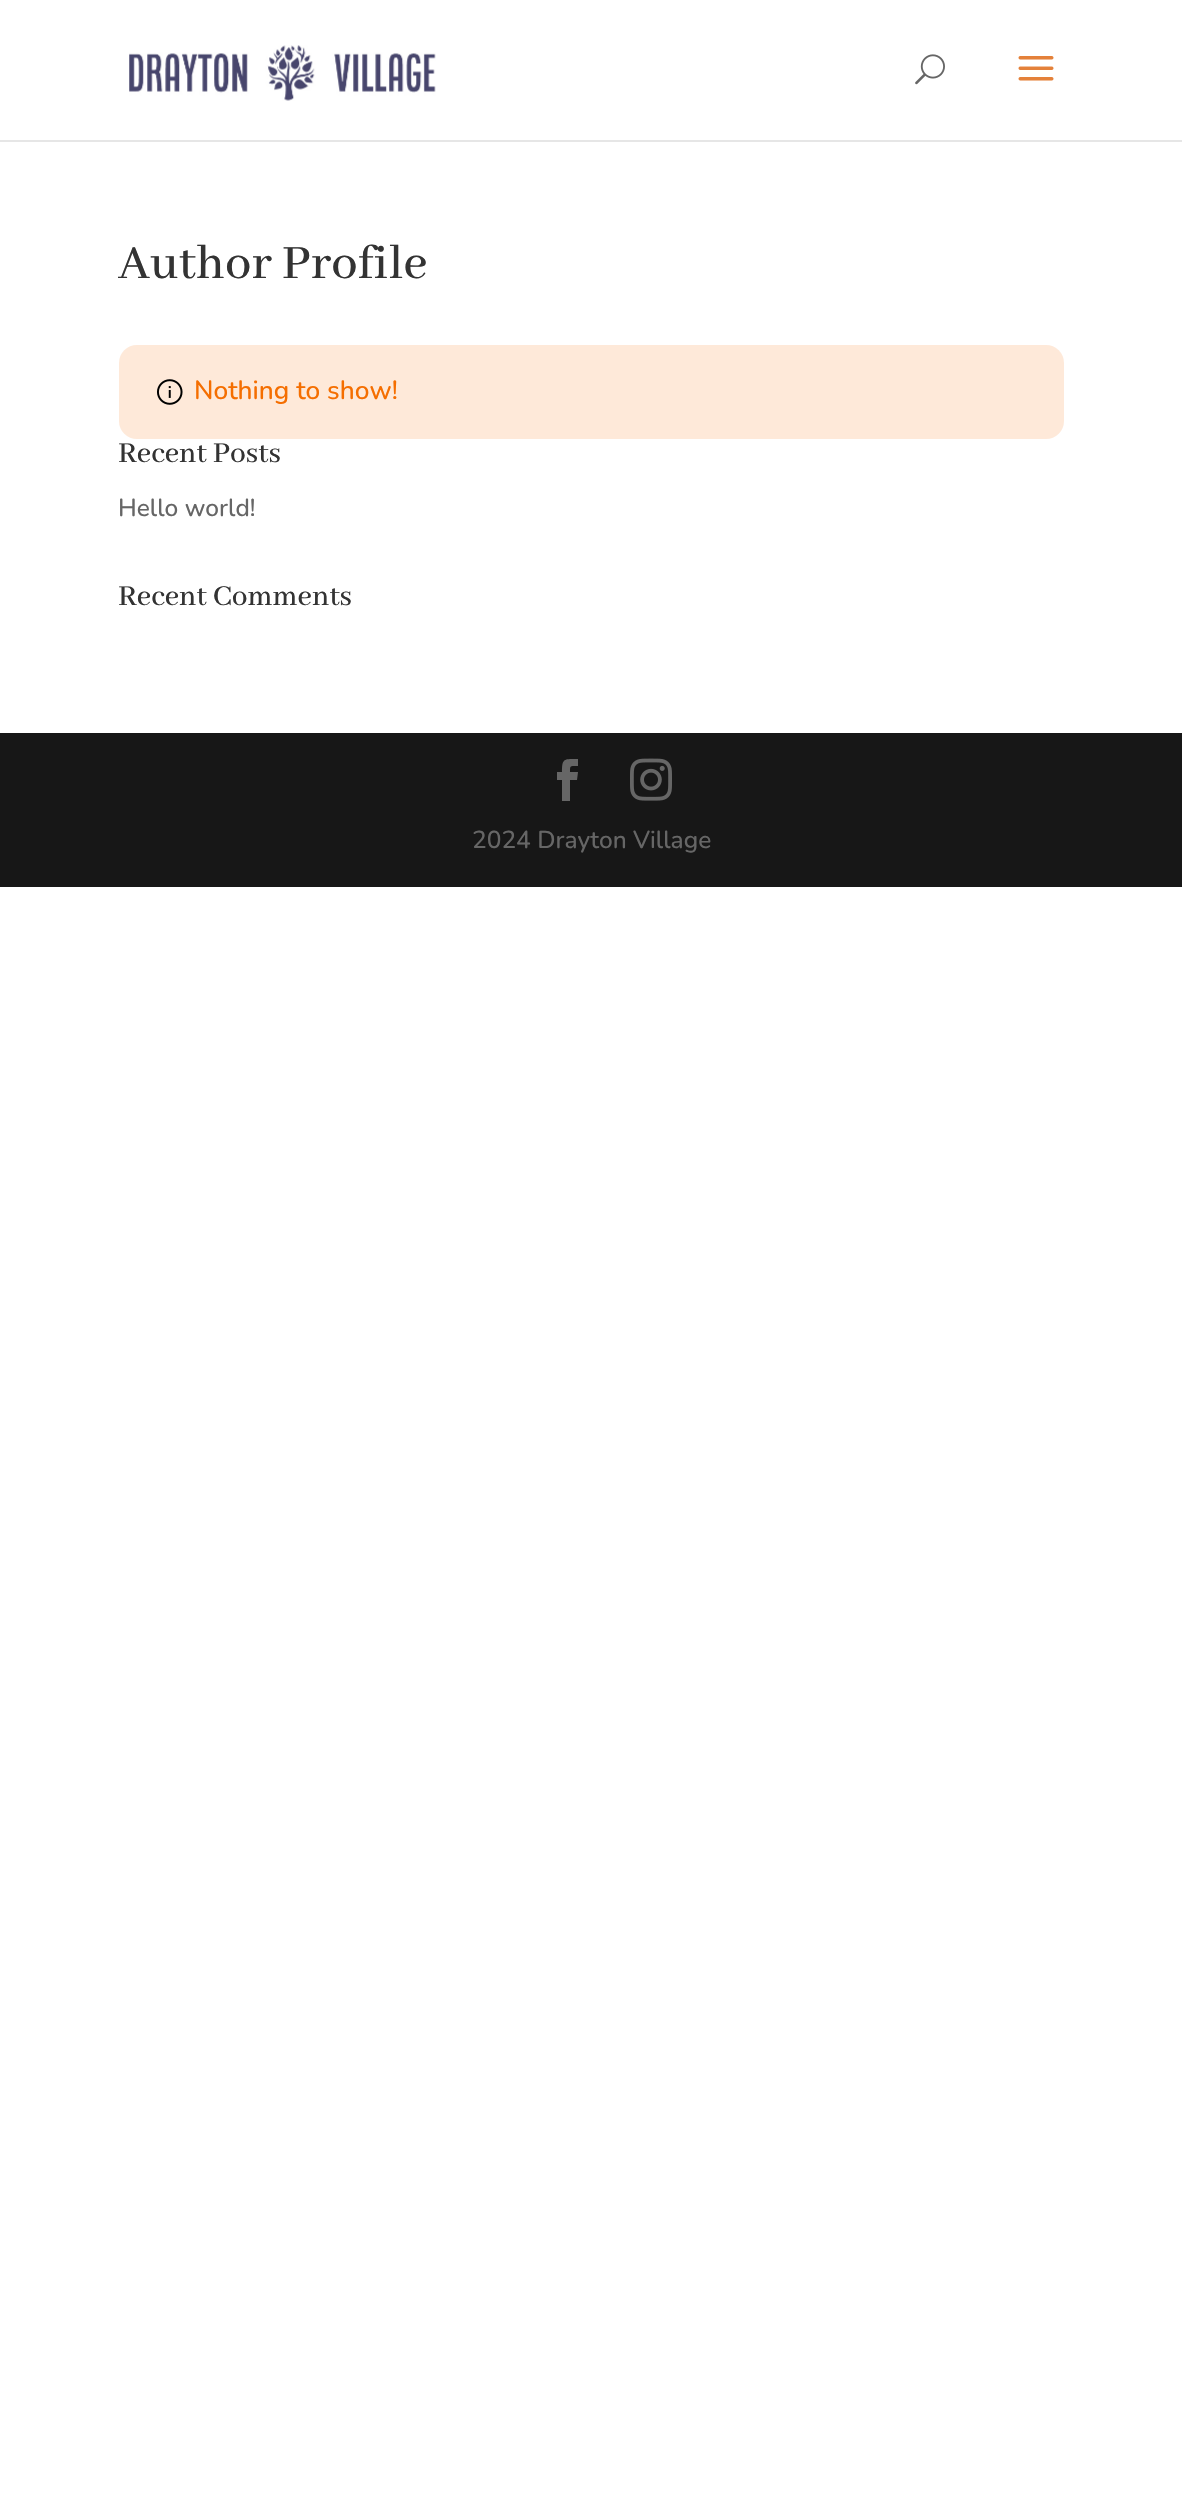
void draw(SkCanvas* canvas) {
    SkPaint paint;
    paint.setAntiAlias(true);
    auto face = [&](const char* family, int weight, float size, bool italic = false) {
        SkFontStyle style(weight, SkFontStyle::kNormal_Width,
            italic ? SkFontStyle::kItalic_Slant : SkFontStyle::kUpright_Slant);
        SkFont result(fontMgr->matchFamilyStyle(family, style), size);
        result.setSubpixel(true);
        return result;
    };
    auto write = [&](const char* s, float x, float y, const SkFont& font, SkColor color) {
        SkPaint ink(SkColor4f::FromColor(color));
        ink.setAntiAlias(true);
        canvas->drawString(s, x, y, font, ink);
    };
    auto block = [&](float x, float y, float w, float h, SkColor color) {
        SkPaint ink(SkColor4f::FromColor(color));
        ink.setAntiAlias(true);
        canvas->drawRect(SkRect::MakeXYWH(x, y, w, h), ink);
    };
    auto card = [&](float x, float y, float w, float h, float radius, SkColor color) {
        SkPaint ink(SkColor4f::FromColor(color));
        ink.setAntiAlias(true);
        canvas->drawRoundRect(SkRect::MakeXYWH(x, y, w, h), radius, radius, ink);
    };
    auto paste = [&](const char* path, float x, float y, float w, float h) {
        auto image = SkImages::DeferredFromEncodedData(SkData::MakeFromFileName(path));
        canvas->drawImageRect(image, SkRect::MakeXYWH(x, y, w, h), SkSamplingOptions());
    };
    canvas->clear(SK_ColorWHITE);
    block(0, 140, 1182, 2, SkColorSetRGB(230, 230, 230));
    paste("pic1.png", 129, 45, 307, 56);
    paste("pic2.png", 915, 54, 30, 31);
    paste("pic3.png", 1018, 56, 36, 25);
    auto kFont1 = face("Abhaya Libre Medium", 500, 52.5f);
    write("Author Profile", 118, 278, kFont1, SkColorSetRGB(51, 51, 51));
    card(119, 345, 945, 94, 18, SkColorSetRGB(254, 233, 217));
    paste("pic4.png", 157, 379, 26, 26);
    auto kFont2 = face("Nunito", 500, 26.25f);
    write("Nothing to show!", 194, 399, kFont2, SkColorSetRGB(245, 110, 0));
    auto kFont3 = face("Abhaya Libre Medium", 500, 31.5f);
    write("Recent Posts", 118, 462, kFont3, SkColorSetRGB(51, 51, 51));
    auto kFont4 = face("Nunito", 500, 24.5f);
    write("Hello world!", 118, 516, kFont4, SkColorSetRGB(102, 102, 102));
    write("Recent Comments", 118, 605, kFont3, SkColorSetRGB(51, 51, 51));
    block(0, 733, 1182, 154, SkColorSetRGB(23, 23, 23));
    paint.setColor(SkColorSetRGB(102, 102, 102));
    canvas->drawPath(SkPathBuilder().moveTo(562, 801).lineTo(570, 801).lineTo(570, 780).lineTo(577, 780).lineTo(578, 772).lineTo(570, 772).cubicTo(570, 765, 570, 766, 578, 766).lineTo(578, 759).cubicTo(564, 759, 562, 758, 562, 772).lineTo(557, 772).lineTo(557, 780).lineTo(562, 780).close().detach(), paint);
    paste("pic5.png", 630, 758, 42, 43);
    write("2024 Drayton Village", 472, 848, kFont4, SkColorSetRGB(102, 102, 102));
}
